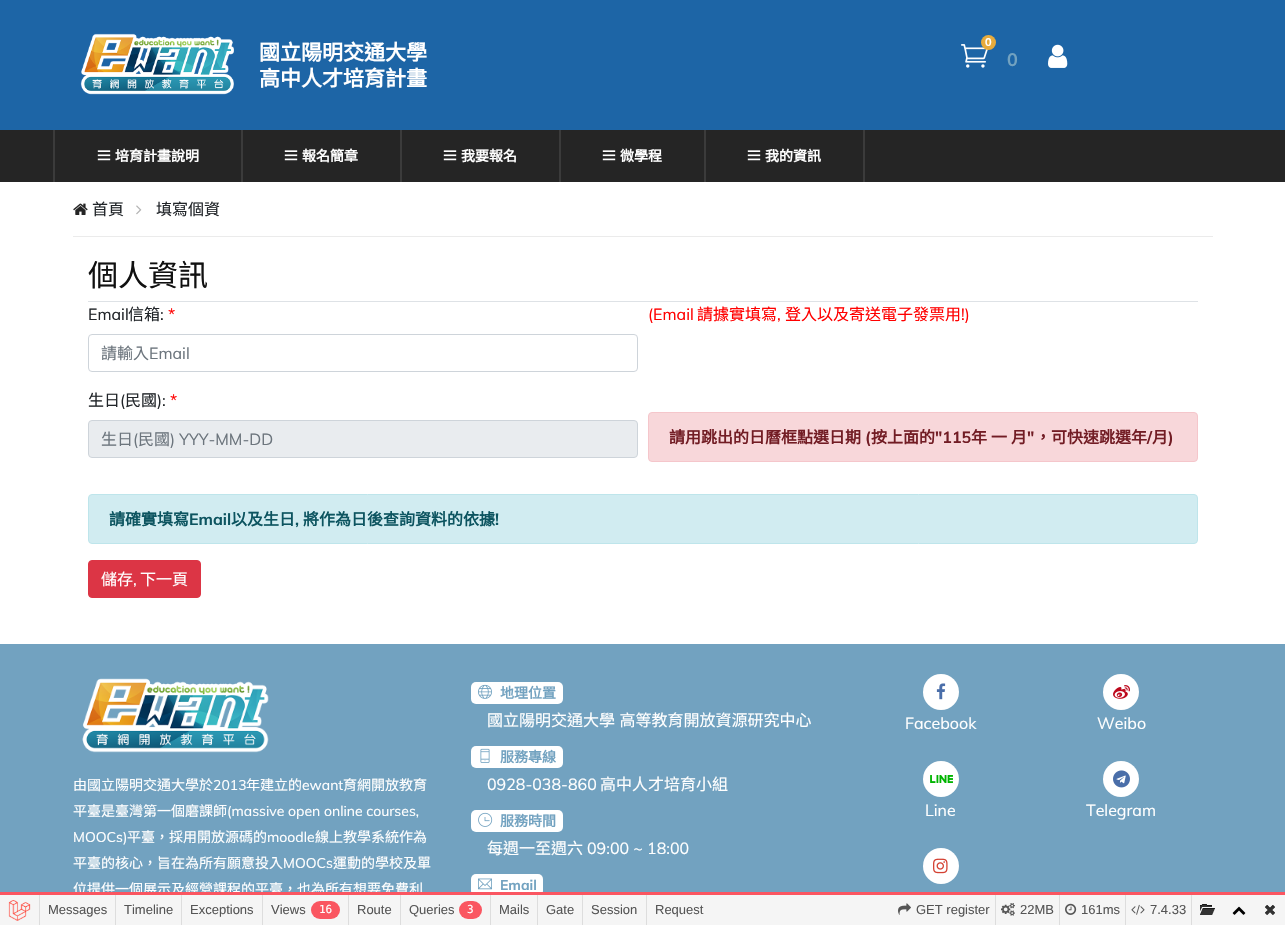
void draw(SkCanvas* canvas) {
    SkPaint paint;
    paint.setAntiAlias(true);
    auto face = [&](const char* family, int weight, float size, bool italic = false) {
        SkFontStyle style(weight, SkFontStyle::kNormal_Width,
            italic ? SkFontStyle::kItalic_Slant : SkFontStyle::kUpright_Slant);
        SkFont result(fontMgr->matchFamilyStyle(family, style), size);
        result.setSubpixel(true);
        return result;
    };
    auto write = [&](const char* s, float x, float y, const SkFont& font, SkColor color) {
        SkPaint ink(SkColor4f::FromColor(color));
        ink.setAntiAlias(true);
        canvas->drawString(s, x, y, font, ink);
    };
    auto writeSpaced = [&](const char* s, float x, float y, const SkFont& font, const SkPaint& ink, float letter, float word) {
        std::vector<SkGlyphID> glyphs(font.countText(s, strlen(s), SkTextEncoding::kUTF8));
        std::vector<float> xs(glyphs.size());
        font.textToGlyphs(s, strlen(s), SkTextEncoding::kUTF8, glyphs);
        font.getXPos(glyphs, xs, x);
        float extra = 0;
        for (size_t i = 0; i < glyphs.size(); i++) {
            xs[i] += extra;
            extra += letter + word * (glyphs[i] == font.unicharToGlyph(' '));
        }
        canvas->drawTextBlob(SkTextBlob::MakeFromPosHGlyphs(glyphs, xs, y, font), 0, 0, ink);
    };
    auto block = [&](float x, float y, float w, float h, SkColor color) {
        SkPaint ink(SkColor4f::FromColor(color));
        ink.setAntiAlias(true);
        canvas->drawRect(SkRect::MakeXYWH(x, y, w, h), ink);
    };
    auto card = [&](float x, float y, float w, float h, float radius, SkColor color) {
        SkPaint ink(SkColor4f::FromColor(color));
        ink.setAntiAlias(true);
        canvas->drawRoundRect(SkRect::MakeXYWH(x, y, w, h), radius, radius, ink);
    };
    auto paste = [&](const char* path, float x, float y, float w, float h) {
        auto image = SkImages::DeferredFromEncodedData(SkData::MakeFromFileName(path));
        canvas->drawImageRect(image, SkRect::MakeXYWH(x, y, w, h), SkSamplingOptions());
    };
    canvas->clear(SK_ColorWHITE);
    block(0, 0, 1285, 130, SkColorSetRGB(29, 101, 166));
    paste("pic1.png", 80, 33, 154, 62);
    auto kFont1 = face("Noto Sans CJK TC", 700, 21);
    write("國立陽明交通大學", 259, 60, kFont1, SK_ColorWHITE);
    write("高中人才培育計畫", 259, 86, kFont1, SK_ColorWHITE);
    paste("pic2.png", 961, 44, 27, 24);
    paint.setColor(SkColorSetRGB(231, 171, 60));
    canvas->drawCircle(988.5f, 42.5f, 7.5f, paint);
    auto kFont2 = face("Muli", 700, 11);
    write("0", 985, 46, kFont2, SK_ColorWHITE);
    auto kFont3 = face("Muli", 700, 18);
    write("0", 1007, 66, kFont3, SkColorSetRGB(114, 162, 192));
    paste("pic3.png", 1048, 44, 20, 24);
    block(0, 130, 1285, 52, SkColorSetRGB(37, 37, 37));
    block(241, 130, 2, 52, SkColorSetRGB(59, 59, 59));
    block(53, 130, 2, 52, SkColorSetRGB(59, 59, 59));
    paste("pic4.png", 97, 150, 14, 11);
    auto kFont4 = face("Noto Sans CJK TC", 700, 14);
    write("培育計畫說明", 115, 161, kFont4, SK_ColorWHITE);
    block(400, 130, 2, 52, SkColorSetRGB(59, 59, 59));
    paste("pic4.png", 284, 150, 14, 11);
    write("報名簡章", 302, 161, kFont4, SK_ColorWHITE);
    block(559, 130, 2, 52, SkColorSetRGB(59, 59, 59));
    paste("pic4.png", 443, 150, 14, 11);
    write("我要報名", 461, 161, kFont4, SK_ColorWHITE);
    block(704, 130, 2, 52, SkColorSetRGB(59, 59, 59));
    paste("pic4.png", 602, 150, 14, 11);
    write("微學程", 620, 161, kFont4, SK_ColorWHITE);
    block(863, 130, 2, 52, SkColorSetRGB(59, 59, 59));
    paste("pic4.png", 747, 150, 14, 11);
    write("我的資訊", 765, 161, kFont4, SK_ColorWHITE);
    block(73, 236, 1140, 1, SkColorSetRGB(235, 235, 235));
    paste("pic5.png", 73, 203, 15, 12);
    auto kFont5 = face("Noto Sans CJK TC", 400, 16);
    write("首頁", 92, 215, kFont5, SkColorSetRGB(33, 37, 41));
    paste("pic6.png", 136, 205, 6, 10);
    write("填寫個資", 156, 215, kFont5, SkColorSetRGB(33, 37, 41));
    block(88, 301, 1110, 1, SkColorSetRGB(222, 226, 230));
    auto kFont6 = face("Noto Sans CJK TC", 400, 30);
    write("個人資訊", 88, 286, kFont6, SkColorSetRGB(17, 17, 17));
    auto kFont7 = face("Muli", 400, 16);
    write("Email", 88, 320, kFont7, SkColorSetRGB(33, 37, 41));
    write("信箱", 128, 320, kFont5, SkColorSetRGB(33, 37, 41));
    write(":", 160, 320, kFont7, SkColorSetRGB(33, 37, 41));
    write("*", 168, 320, kFont7, SkColorSetRGB(255, 0, 0));
    paint.setStyle(SkPaint::kStroke_Style);
    paint.setStrokeWidth(1);
    paint.setColor(SkColorSetRGB(206, 212, 218));
    canvas->drawRoundRect(SkRect::MakeXYWH(88.5f, 334.5f, 549, 37), 3.5f, 3.5f, paint);
    write("請輸入", 101, 359, kFont5, SkColorSetRGB(108, 117, 125));
    write("Email", 149, 359, kFont7, SkColorSetRGB(108, 117, 125));
    write("(Email", 648, 320, kFont7, SkColorSetRGB(255, 0, 0));
    write("請據實填寫", 697, 320, kFont5, SkColorSetRGB(255, 0, 0));
    write(",", 777, 320, kFont7, SkColorSetRGB(255, 0, 0));
    write("登入以及寄送電子發票用", 785, 320, kFont5, SkColorSetRGB(255, 0, 0));
    write("!)", 961, 320, kFont7, SkColorSetRGB(255, 0, 0));
    write("生日", 88, 406, kFont5, SkColorSetRGB(33, 37, 41));
    write("(", 120, 406, kFont7, SkColorSetRGB(33, 37, 41));
    write("民國", 125, 406, kFont5, SkColorSetRGB(33, 37, 41));
    write("):", 157, 406, kFont7, SkColorSetRGB(33, 37, 41));
    write("*", 170, 406, kFont7, SkColorSetRGB(255, 0, 0));
    paint.setStyle(SkPaint::kFill_Style);
    paint.setColor(SkColorSetRGB(233, 236, 239));
    canvas->drawRoundRect(SkRect::MakeXYWH(88.5f, 420.5f, 549, 37), 3.5f, 3.5f, paint);
    paint.setStyle(SkPaint::kStroke_Style);
    paint.setColor(SkColorSetRGB(206, 212, 218));
    canvas->drawRoundRect(SkRect::MakeXYWH(88.5f, 420.5f, 549, 37), 3.5f, 3.5f, paint);
    write("生日", 101, 445, kFont5, SkColorSetRGB(108, 117, 125));
    write("(", 133, 445, kFont7, SkColorSetRGB(108, 117, 125));
    write("民國", 138, 445, kFont5, SkColorSetRGB(108, 117, 125));
    write(") YYY-MM-DD", 170, 445, kFont7, SkColorSetRGB(108, 117, 125));
    paint.setStyle(SkPaint::kFill_Style);
    paint.setColor(SkColorSetRGB(248, 215, 218));
    canvas->drawRoundRect(SkRect::MakeXYWH(648.5f, 412.5f, 549, 49), 3.5f, 3.5f, paint);
    paint.setStyle(SkPaint::kStroke_Style);
    paint.setColor(SkColorSetRGB(245, 198, 203));
    canvas->drawRoundRect(SkRect::MakeXYWH(648.5f, 412.5f, 549, 49), 3.5f, 3.5f, paint);
    auto kFont8 = face("Noto Sans CJK TC", 700, 16);
    write("請用跳出的日曆框點選日期", 669, 443, kFont8, SkColorSetRGB(114, 28, 36));
    auto kFont9 = face("Muli", 700, 16);
    write("(", 865, 443, kFont9, SkColorSetRGB(114, 28, 36));
    write("按上面的", 871, 443, kFont8, SkColorSetRGB(114, 28, 36));
    write("\"115", 935, 443, kFont9, SkColorSetRGB(114, 28, 36));
    write("年", 971, 443, kFont8, SkColorSetRGB(114, 28, 36));
    write("一", 991, 443, kFont8, SkColorSetRGB(114, 28, 36));
    write("月", 1011, 443, kFont8, SkColorSetRGB(114, 28, 36));
    write("\"", 1027, 443, kFont9, SkColorSetRGB(114, 28, 36));
    write("，可快速跳選年", 1035, 443, kFont8, SkColorSetRGB(114, 28, 36));
    write("/", 1147, 443, kFont9, SkColorSetRGB(114, 28, 36));
    write("月", 1152, 443, kFont8, SkColorSetRGB(114, 28, 36));
    write(")", 1168, 443, kFont9, SkColorSetRGB(114, 28, 36));
    paint.setStyle(SkPaint::kFill_Style);
    paint.setColor(SkColorSetRGB(209, 236, 241));
    canvas->drawRoundRect(SkRect::MakeXYWH(88.5f, 494.5f, 1109, 49), 3.5f, 3.5f, paint);
    paint.setStyle(SkPaint::kStroke_Style);
    paint.setColor(SkColorSetRGB(190, 229, 235));
    canvas->drawRoundRect(SkRect::MakeXYWH(88.5f, 494.5f, 1109, 49), 3.5f, 3.5f, paint);
    write("請確實填寫", 109, 525, kFont8, SkColorSetRGB(12, 84, 96));
    write("Email", 189, 525, kFont9, SkColorSetRGB(12, 84, 96));
    write("以及生日", 231, 525, kFont8, SkColorSetRGB(12, 84, 96));
    write(",", 295, 525, kFont9, SkColorSetRGB(12, 84, 96));
    write("將作為日後查詢資料的依據", 303, 525, kFont8, SkColorSetRGB(12, 84, 96));
    write("!", 495, 525, kFont9, SkColorSetRGB(12, 84, 96));
    paint.setStyle(SkPaint::kFill_Style);
    paint.setColor(SkColorSetRGB(220, 53, 69));
    canvas->drawRoundRect(SkRect::MakeXYWH(88.5f, 560.5f, 112, 37), 3.5f, 3.5f, paint);
    paint.setStyle(SkPaint::kStroke_Style);
    canvas->drawRoundRect(SkRect::MakeXYWH(88.5f, 560.5f, 112, 37), 3.5f, 3.5f, paint);
    write("儲存", 101, 585, kFont5, SK_ColorWHITE);
    write(",", 133, 585, kFont7, SK_ColorWHITE);
    write("下一頁", 140, 585, kFont5, SK_ColorWHITE);
    block(0, 644, 1285, 248, SkColorSetRGB(114, 162, 192));
    paste("pic7.png", 82, 678, 187, 75);
    auto kFont10 = face("Noto Sans CJK TC", 400, 14);
    write("由國立陽明交通大學於", 73, 790, kFont10, SK_ColorWHITE);
    auto kFont11 = face("Muli", 400, 14);
    write("2013", 213, 790, kFont11, SK_ColorWHITE);
    write("年建立的", 246, 790, kFont10, SK_ColorWHITE);
    write("ewant", 302, 790, kFont11, SK_ColorWHITE);
    write("育網開放教育", 343, 790, kFont10, SK_ColorWHITE);
    write("平臺是臺灣第一個磨課師", 73, 816, kFont10, SK_ColorWHITE);
    write("(massive open online courses,", 227, 816, kFont11, SK_ColorWHITE);
    write("MOOCs)", 73, 842, kFont11, SK_ColorWHITE);
    write("平臺，採用開放源碼的", 127, 842, kFont10, SK_ColorWHITE);
    write("moodle", 267, 842, kFont11, SK_ColorWHITE);
    write("線上教學系統作為", 315, 842, kFont10, SK_ColorWHITE);
    write("平臺的核心，旨在為所有願意投入", 73, 868, kFont10, SK_ColorWHITE);
    write("MOOCs", 283, 868, kFont11, SK_ColorWHITE);
    write("運動的學校及單", 333, 868, kFont10, SK_ColorWHITE);
    write("位提供一個展示及經營課程的平臺，也為所有想要免費利", 73, 894, kFont10, SK_ColorWHITE);
    card(471, 682, 92, 22, 5, SK_ColorWHITE);
    paste("pic8.png", 478, 684, 14, 15);
    write("地理位置", 500, 698, kFont4, SkColorSetRGB(114, 162, 192));
    paint.setStyle(SkPaint::kFill_Style);
    paint.setColor(SK_ColorWHITE);
    writeSpaced("國立陽明交通大學 高等教育開放資源研究中心", 487, 726, kFont5, paint, 0, 1);
    card(471, 746, 92, 22, 5, SK_ColorWHITE);
    paste("pic9.png", 480, 748, 10, 15);
    write("服務專線", 500, 762, kFont4, SkColorSetRGB(114, 162, 192));
    write("0928-038-860", 487, 790, kFont7, SK_ColorWHITE);
    write("高中人才培育小組", 600, 790, kFont5, SK_ColorWHITE);
    card(471, 810, 92, 22, 5, SK_ColorWHITE);
    paste("pic10.png", 478, 812, 15, 15);
    write("服務時間", 500, 826, kFont4, SkColorSetRGB(114, 162, 192));
    write("每週一至週六", 487, 854, kFont5, SK_ColorWHITE);
    write("09:00 ~ 18:00", 587, 854, kFont7, SK_ColorWHITE);
    card(471, 874, 72, 22, 5, SK_ColorWHITE);
    paste("pic11.png", 478, 878, 14, 12);
    auto kFont12 = face("Muli", 700, 14);
    write("Email", 500, 890, kFont12, SkColorSetRGB(114, 162, 192));
    canvas->drawCircle(941, 692, 18, paint);
    paste("pic12.png", 936, 683, 10, 17);
    write("Facebook", 905, 729, kFont7, SK_ColorWHITE);
    canvas->drawCircle(1121, 692, 18, paint);
    paste("pic13.png", 1113, 685, 17, 14);
    write("Weibo", 1097, 729, kFont7, SK_ColorWHITE);
    canvas->drawCircle(941, 779, 18, paint);
    paste("pic14.png", 930, 775, 23, 8);
    write("Line", 925, 816, kFont7, SK_ColorWHITE);
    canvas->drawCircle(1121, 779, 18, paint);
    paste("pic15.png", 1113, 770, 17, 18);
    write("Telegram", 1086, 816, kFont7, SK_ColorWHITE);
    canvas->drawCircle(941, 866, 18, paint);
    paste("pic16.png", 933, 858, 15, 16);
    block(0, 892, 1285, 3, SkColorSetRGB(250, 86, 97));
    block(0, 895, 1285, 30, SkColorSetRGB(245, 245, 245));
    paste("pic17.png", 8, 900, 23, 21);
    block(39, 895, 1, 30, SkColorSetRGB(221, 221, 221));
    auto kFont13 = face("Liberation Sans", 400, 13);
    write("Messages", 48, 914, kFont13, SkColorSetRGB(85, 85, 85));
    block(115, 895, 1, 30, SkColorSetRGB(221, 221, 221));
    write("Timeline", 124, 914, kFont13, SkColorSetRGB(85, 85, 85));
    block(181, 895, 1, 30, SkColorSetRGB(221, 221, 221));
    write("Exceptions", 190, 914, kFont13, SkColorSetRGB(85, 85, 85));
    block(262, 895, 1, 30, SkColorSetRGB(221, 221, 221));
    write("Views", 271, 914, kFont13, SkColorSetRGB(85, 85, 85));
    card(311, 901, 29, 18, 9, SkColorSetRGB(250, 86, 97));
    auto kFont14 = face("DejaVu Sans Mono", 400, 11);
    write("16", 319, 913, kFont14, SK_ColorWHITE);
    block(348, 895, 1, 30, SkColorSetRGB(221, 221, 221));
    write("Route", 357, 914, kFont13, SkColorSetRGB(85, 85, 85));
    block(400, 895, 1, 30, SkColorSetRGB(221, 221, 221));
    write("Queries", 409, 914, kFont13, SkColorSetRGB(85, 85, 85));
    card(459, 901, 23, 18, 9, SkColorSetRGB(250, 86, 97));
    write("3", 467, 913, kFont14, SK_ColorWHITE);
    block(490, 895, 1, 30, SkColorSetRGB(221, 221, 221));
    write("Mails", 499, 914, kFont13, SkColorSetRGB(85, 85, 85));
    block(537, 895, 1, 30, SkColorSetRGB(221, 221, 221));
    write("Gate", 546, 914, kFont13, SkColorSetRGB(85, 85, 85));
    block(582, 895, 1, 30, SkColorSetRGB(221, 221, 221));
    write("Session", 591, 914, kFont13, SkColorSetRGB(85, 85, 85));
    block(646, 895, 1, 30, SkColorSetRGB(221, 221, 221));
    write("Request", 655, 914, kFont13, SkColorSetRGB(85, 85, 85));
    block(995, 895, 1, 30, SkColorSetRGB(221, 221, 221));
    paste("pic18.png", 898, 903, 13, 12);
    write("GET register", 916, 914, kFont13, SkColorSetRGB(85, 85, 85));
    block(1059, 895, 1, 30, SkColorSetRGB(221, 221, 221));
    paste("pic19.png", 1001, 903, 14, 13);
    write("22MB", 1020, 914, kFont13, SkColorSetRGB(85, 85, 85));
    block(1125, 895, 1, 30, SkColorSetRGB(221, 221, 221));
    paste("pic20.png", 1065, 903, 12, 12);
    write("161ms", 1081, 914, kFont13, SkColorSetRGB(85, 85, 85));
    block(1191, 895, 1, 30, SkColorSetRGB(221, 221, 221));
    paste("pic21.png", 1131, 904, 14, 11);
    write("7.4.33", 1150, 914, kFont13, SkColorSetRGB(85, 85, 85));
    paste("pic22.png", 1200, 904, 15, 11);
    paste("pic23.png", 1232, 906, 14, 9);
    paste("pic24.png", 1265, 905, 10, 10);
}
